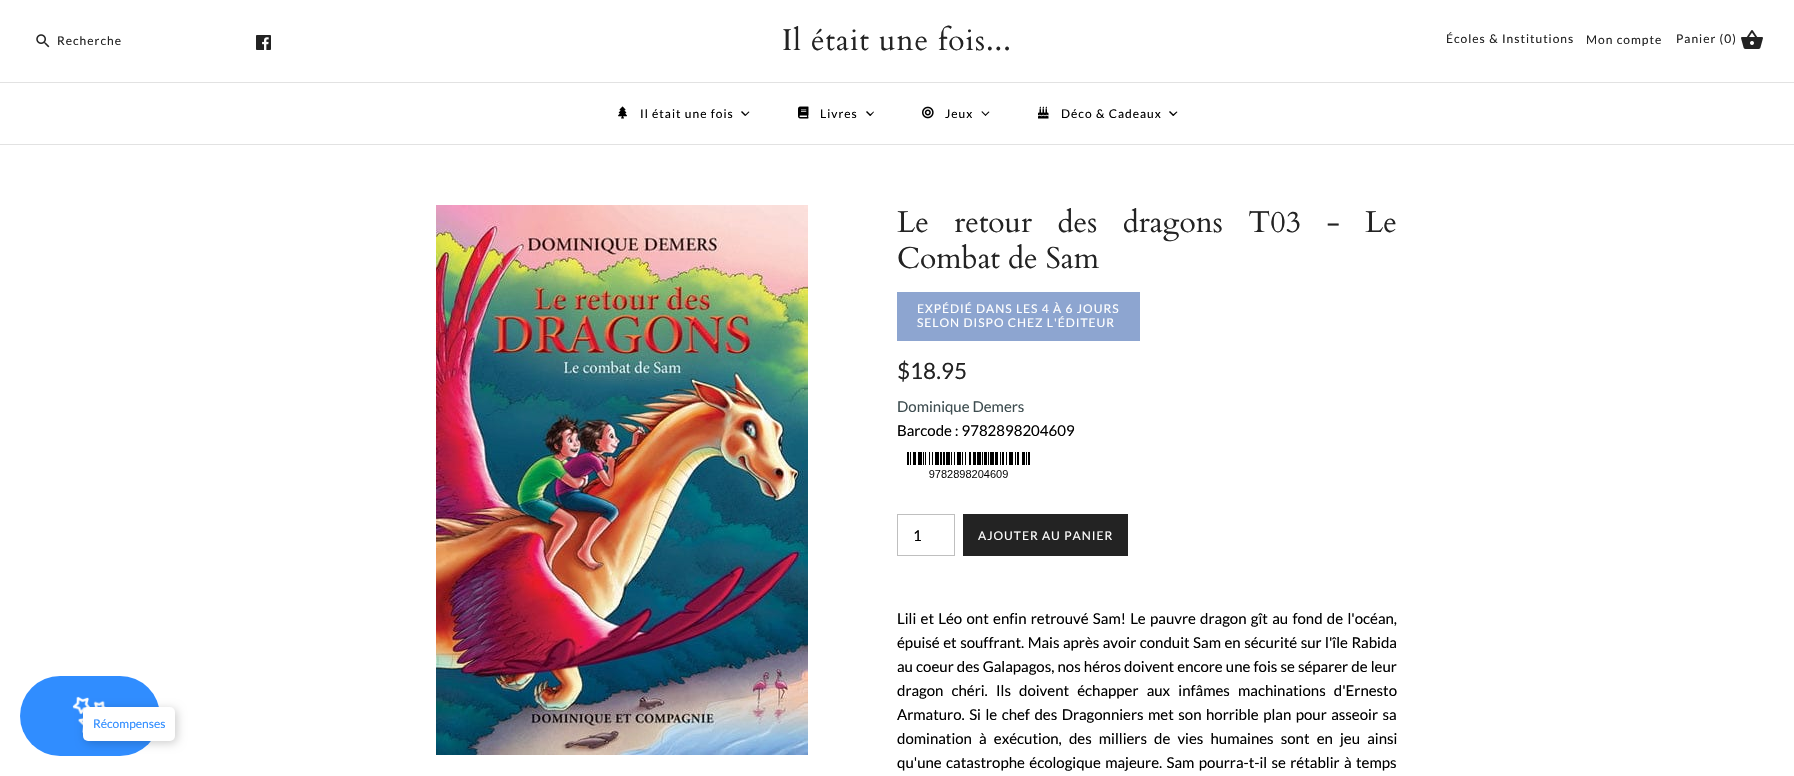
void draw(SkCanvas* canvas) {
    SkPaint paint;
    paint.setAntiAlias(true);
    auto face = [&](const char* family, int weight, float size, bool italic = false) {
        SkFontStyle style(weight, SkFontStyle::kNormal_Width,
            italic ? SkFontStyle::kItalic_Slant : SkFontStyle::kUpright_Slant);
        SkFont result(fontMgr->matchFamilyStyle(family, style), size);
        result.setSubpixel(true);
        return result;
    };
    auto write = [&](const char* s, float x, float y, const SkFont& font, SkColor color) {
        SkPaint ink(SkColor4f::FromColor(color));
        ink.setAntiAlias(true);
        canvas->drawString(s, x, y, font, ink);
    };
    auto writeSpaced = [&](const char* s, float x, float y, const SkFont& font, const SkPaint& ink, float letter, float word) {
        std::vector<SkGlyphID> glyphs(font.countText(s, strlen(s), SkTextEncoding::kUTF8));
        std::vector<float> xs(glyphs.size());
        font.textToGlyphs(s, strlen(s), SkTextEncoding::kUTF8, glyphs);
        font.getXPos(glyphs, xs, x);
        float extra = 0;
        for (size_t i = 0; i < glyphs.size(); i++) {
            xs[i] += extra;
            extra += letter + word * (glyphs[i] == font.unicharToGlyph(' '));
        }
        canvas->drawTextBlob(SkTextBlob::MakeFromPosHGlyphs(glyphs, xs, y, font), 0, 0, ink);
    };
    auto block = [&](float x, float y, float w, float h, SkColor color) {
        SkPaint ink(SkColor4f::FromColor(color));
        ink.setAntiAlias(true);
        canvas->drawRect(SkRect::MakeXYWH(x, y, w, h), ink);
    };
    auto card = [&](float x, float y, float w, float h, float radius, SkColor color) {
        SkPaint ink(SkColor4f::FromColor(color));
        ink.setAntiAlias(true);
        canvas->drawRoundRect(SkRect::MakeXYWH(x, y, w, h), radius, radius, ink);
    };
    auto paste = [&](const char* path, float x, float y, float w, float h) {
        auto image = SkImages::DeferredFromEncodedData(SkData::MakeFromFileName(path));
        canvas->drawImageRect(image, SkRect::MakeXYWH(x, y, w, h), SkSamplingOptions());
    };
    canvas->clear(SK_ColorWHITE);
    auto kFont1 = face("Cardo", 400, 30);
    paint.setColor(SkColorSetRGB(35, 35, 35));
    writeSpaced("Il était une fois...", 782, 50, kFont1, paint, 1, 0);
    paste("pic1.png", 36, 34, 14, 14);
    auto kFont2 = face("Lato", 400, 12);
    writeSpaced("Recherche", 57, 45, kFont2, paint, 1, 0);
    paste("pic2.png", 256, 35, 15, 15);
    writeSpaced("Écoles & Institutions", 1446, 43, kFont2, paint, 1, 0);
    writeSpaced("Mon compte", 1586, 44, kFont2, paint, 1, 0);
    writeSpaced("Panier (0)", 1676, 43, kFont2, paint, 1, 0);
    paste("pic3.png", 1741, 30, 22, 19);
    block(0, 144, 1794, 1, SkColorSetRGB(226, 226, 226));
    block(0, 82, 1794, 1, SkColorSetRGB(226, 226, 226));
    paste("pic4.png", 618, 106, 9, 13);
    paint.setColor(SK_ColorBLACK);
    writeSpaced("Il était une fois", 640, 118, kFont2, paint, 1, 0);
    canvas->drawPath(SkPathBuilder().moveTo(748.5f, 111.5f).lineTo(749.5f, 112).lineTo(745.5f, 116).lineTo(745, 115).close().detach(), paint);
    canvas->drawPath(SkPathBuilder().moveTo(742, 111).lineTo(746, 115).lineTo(745, 116).lineTo(741, 112).close().detach(), paint);
    paste("pic5.png", 798, 106, 11, 13);
    writeSpaced("Livres", 820, 118, kFont2, paint, 1, 0);
    canvas->drawPath(SkPathBuilder().moveTo(873.5f, 111.5f).lineTo(874, 112).lineTo(870.5f, 116).lineTo(869.5f, 115).close().detach(), paint);
    canvas->drawPath(SkPathBuilder().moveTo(867, 111).lineTo(871, 115).lineTo(870, 116).lineTo(866, 112).close().detach(), paint);
    paste("pic6.png", 922, 106, 12, 13);
    writeSpaced("Jeux", 945, 118, kFont2, paint, 1, 0);
    canvas->drawPath(SkPathBuilder().moveTo(988.5f, 111.5f).lineTo(989.5f, 112).lineTo(985.5f, 116).lineTo(985, 115).close().detach(), paint);
    canvas->drawPath(SkPathBuilder().moveTo(982, 111).lineTo(986, 115).lineTo(985.5f, 116).lineTo(981.5f, 112).close().detach(), paint);
    paste("pic7.png", 1038, 106, 11, 13);
    writeSpaced("Déco & Cadeaux", 1061, 118, kFont2, paint, 1, 0);
    canvas->drawPath(SkPathBuilder().moveTo(1176.5f, 111.5f).lineTo(1177.5f, 112).lineTo(1173.5f, 116).lineTo(1172.5f, 115).close().detach(), paint);
    canvas->drawPath(SkPathBuilder().moveTo(1170, 111).lineTo(1174, 115).lineTo(1173, 116).lineTo(1169, 112).close().detach(), paint);
    card(20, 676, 140, 80, 40, SkColorSetRGB(48, 141, 255));
    paste("pic8.png", 72, 696, 34, 38);
    paste("pic9.png", 436, 205, 372, 550);
    paint.setColor(SkColorSetRGB(35, 35, 35));
    writeSpaced("Le retour des dragons T03 -", 897, 232, kFont1, paint, 0, 17.5f);
    write("Le", 1365, 232, kFont1, SkColorSetRGB(35, 35, 35));
    write("Combat de Sam", 897, 268, kFont1, SkColorSetRGB(35, 35, 35));
    block(897, 292, 243, 49, SkColorSetRGB(141, 165, 208));
    paint.setColor(SK_ColorWHITE);
    writeSpaced("EXPÉDIÉ DANS LES 4 À 6 JOURS", 917, 313, kFont2, paint, 1, 0);
    writeSpaced("SELON DISPO CHEZ L'ÉDITEUR", 917, 327, kFont2, paint, 1, 0);
    auto kFont3 = face("Lato", 400, 22.5f);
    write("$18.95", 897, 379, kFont3, SkColorSetRGB(35, 35, 35));
    auto kFont4 = face("Lato", 400, 15);
    write("Dominique Demers", 897, 412, kFont4, SkColorSetRGB(61, 76, 79));
    write("Barcode : 9782898204609", 897, 436, kFont4, SK_ColorBLACK);
    paste("pic10.png", 907, 452, 123, 26);
    paint.setStyle(SkPaint::kStroke_Style);
    paint.setStrokeWidth(1);
    paint.setColor(SkColorSetRGB(191, 191, 191));
    canvas->drawRect(SkRect::MakeXYWH(897.5f, 514.5f, 57, 41), paint);
    write("1", 913, 541, kFont4, SK_ColorBLACK);
    block(963, 514, 165, 42, SkColorSetRGB(35, 35, 35));
    paint.setStyle(SkPaint::kFill_Style);
    paint.setColor(SK_ColorWHITE);
    writeSpaced("AJOUTER AU PANIER", 978, 540, kFont2, paint, 1, 0);
    paint.setColor(SK_ColorBLACK);
    writeSpaced("Lili et Léo ont enfin retrouvé Sam! Le pauvre dragon gît au fond de l'océan,", 897, 624, kFont4, paint, 0, 1.4f);
    writeSpaced("épuisé et souffrant. Mais après avoir conduit Sam en sécurité sur l'île Rabida", 897, 648, kFont4, paint, 0, 0.6f);
    writeSpaced("au coeur des Galapagos, nos héros doivent encore une fois se séparer de leur", 897, 672, kFont4, paint, 0, 0.25f);
    writeSpaced("dragon chéri. Ils doivent échapper aux infâmes machinations d'Ernesto", 897, 696, kFont4, paint, 0, 5.25f);
    writeSpaced("Armaturo. Si le chef des Dragonniers met son horrible plan pour asseoir sa", 897, 720, kFont4, paint, 0, 1.6f);
    writeSpaced("domination à exécution, des milliers de vies humaines sont en jeu ainsi", 897, 744, kFont4, paint, 0, 4.25f);
    writeSpaced("qu'une catastrophe écologique majeure. Sam pourra-t-il se rétablir à temps", 897, 768, kFont4, paint, 0, 1.5f);
    paint.setColor(SkColorSetARGB(51, 0, 0, 0));
    paint.setMaskFilter(SkMaskFilter::MakeBlur(kNormal_SkBlurStyle, 5));
    canvas->drawRoundRect(SkRect::MakeXYWH(85, 709, 92, 34), 5, 5, paint);
    paint.setMaskFilter(nullptr);
    card(83, 707, 92, 34, 5, SK_ColorWHITE);
    write("Récompenses", 93, 728, kFont2, SkColorSetRGB(48, 141, 255));
}
